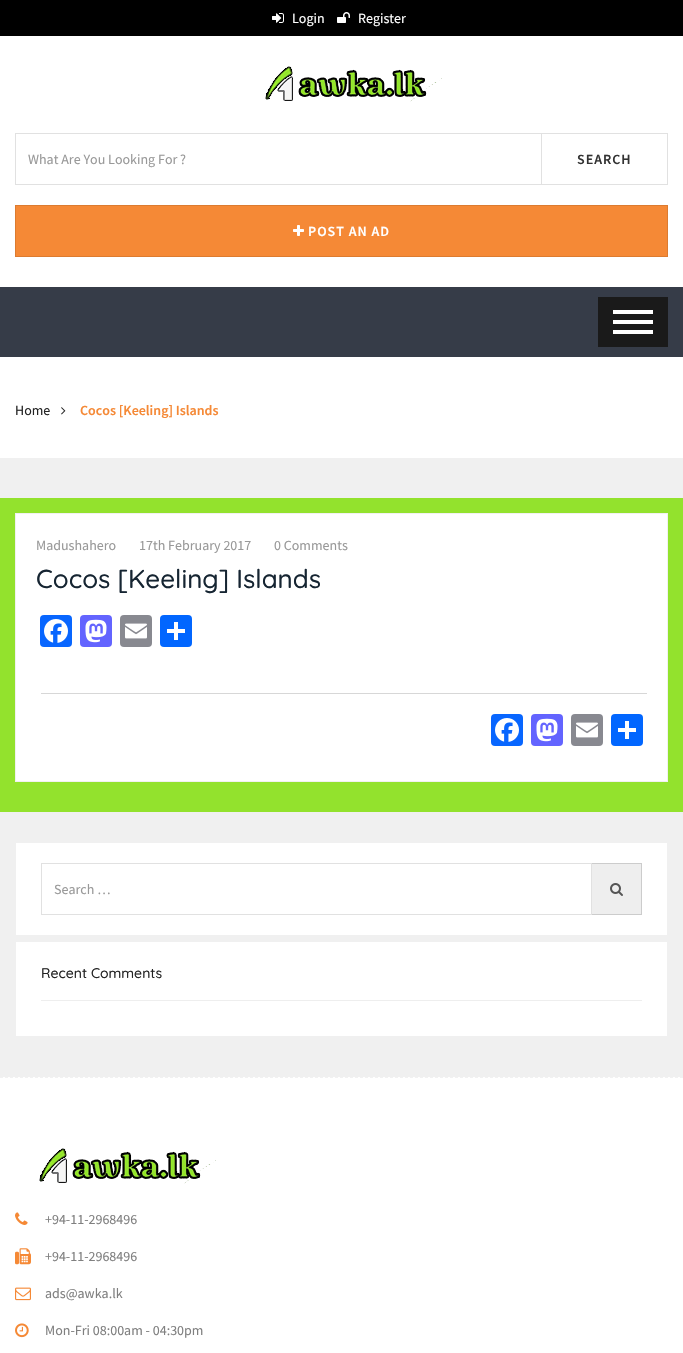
void draw(SkCanvas* canvas) {
    SkPaint paint;
    paint.setAntiAlias(true);
    auto face = [&](const char* family, int weight, float size, bool italic = false) {
        SkFontStyle style(weight, SkFontStyle::kNormal_Width,
            italic ? SkFontStyle::kItalic_Slant : SkFontStyle::kUpright_Slant);
        SkFont result(fontMgr->matchFamilyStyle(family, style), size);
        result.setSubpixel(true);
        return result;
    };
    auto write = [&](const char* s, float x, float y, const SkFont& font, SkColor color) {
        SkPaint ink(SkColor4f::FromColor(color));
        ink.setAntiAlias(true);
        canvas->drawString(s, x, y, font, ink);
    };
    auto writeSpaced = [&](const char* s, float x, float y, const SkFont& font, const SkPaint& ink, float letter, float word) {
        std::vector<SkGlyphID> glyphs(font.countText(s, strlen(s), SkTextEncoding::kUTF8));
        std::vector<float> xs(glyphs.size());
        font.textToGlyphs(s, strlen(s), SkTextEncoding::kUTF8, glyphs);
        font.getXPos(glyphs, xs, x);
        float extra = 0;
        for (size_t i = 0; i < glyphs.size(); i++) {
            xs[i] += extra;
            extra += letter + word * (glyphs[i] == font.unicharToGlyph(' '));
        }
        canvas->drawTextBlob(SkTextBlob::MakeFromPosHGlyphs(glyphs, xs, y, font), 0, 0, ink);
    };
    auto block = [&](float x, float y, float w, float h, SkColor color) {
        SkPaint ink(SkColor4f::FromColor(color));
        ink.setAntiAlias(true);
        canvas->drawRect(SkRect::MakeXYWH(x, y, w, h), ink);
    };
    auto card = [&](float x, float y, float w, float h, float radius, SkColor color) {
        SkPaint ink(SkColor4f::FromColor(color));
        ink.setAntiAlias(true);
        canvas->drawRoundRect(SkRect::MakeXYWH(x, y, w, h), radius, radius, ink);
    };
    auto paste = [&](const char* path, float x, float y, float w, float h) {
        auto image = SkImages::DeferredFromEncodedData(SkData::MakeFromFileName(path));
        canvas->drawImageRect(image, SkRect::MakeXYWH(x, y, w, h), SkSamplingOptions());
    };
    canvas->clear(SK_ColorWHITE);
    block(0, 0, 683, 36, SK_ColorBLACK);
    paste("pic1.png", 272, 13, 12, 10);
    auto kFont1 = face("Source Sans Pro", 400, 14);
    write("Login", 292, 23, kFont1, SK_ColorWHITE);
    paste("pic2.png", 337, 12, 13, 11);
    write("Register", 358, 23, kFont1, SK_ColorWHITE);
    paste("pic3.png", 265, 66, 177, 36);
    paint.setStyle(SkPaint::kStroke_Style);
    paint.setStrokeWidth(1);
    paint.setColor(SkColorSetRGB(225, 225, 225));
    canvas->drawRect(SkRect::MakeXYWH(15.5f, 133.5f, 526, 51), paint);
    write("What Are You Looking For ?", 28, 164, kFont1, SkColorSetRGB(153, 153, 153));
    canvas->drawRect(SkRect::MakeXYWH(541.5f, 133.5f, 126, 51), paint);
    auto kFont2 = face("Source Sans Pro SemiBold", 600, 14);
    paint.setStyle(SkPaint::kFill_Style);
    paint.setColor(SkColorSetRGB(51, 51, 51));
    writeSpaced("SEARCH", 577, 164, kFont2, paint, 1, 0);
    paint.setColor(SkColorSetRGB(245, 137, 54));
    canvas->drawRect(SkRect::MakeXYWH(15.5f, 205.5f, 652, 51), paint);
    paint.setStyle(SkPaint::kStroke_Style);
    paint.setColor(SkColorSetRGB(220, 123, 48));
    canvas->drawRect(SkRect::MakeXYWH(15.5f, 205.5f, 652, 51), paint);
    paste("pic4.png", 293, 225, 11, 11);
    paint.setStyle(SkPaint::kFill_Style);
    paint.setColor(SK_ColorWHITE);
    writeSpaced("POST AN AD", 308, 236, kFont2, paint, 1, 0);
    block(0, 287, 683, 70, SkColorSetRGB(54, 60, 72));
    block(598, 297, 70, 50, SkColorSetRGB(26, 26, 26));
    block(613, 310, 40, 4, SK_ColorWHITE);
    block(613, 320, 40, 4, SK_ColorWHITE);
    block(613, 330, 40, 4, SK_ColorWHITE);
    write("Home", 15, 415, kFont1, SkColorSetRGB(35, 35, 35));
    paste("pic5.png", 61, 407, 5, 8);
    write("Cocos [Keeling] Islands", 80, 415, kFont2, SkColorSetRGB(245, 137, 54));
    block(0, 458, 683, 619, SkColorSetRGB(240, 240, 240));
    block(0, 498, 683, 314, SkColorSetRGB(147, 226, 45));
    canvas->drawRect(SkRect::MakeXYWH(15.5f, 513.5f, 652, 268), paint);
    paint.setStyle(SkPaint::kStroke_Style);
    paint.setColor(SkColorSetRGB(241, 241, 241));
    canvas->drawRect(SkRect::MakeXYWH(15.5f, 513.5f, 652, 268), paint);
    write("Madushahero", 36, 550, kFont1, SkColorSetRGB(153, 153, 153));
    write("17th February 2017", 139, 550, kFont1, SkColorSetRGB(153, 153, 153));
    write("0 Comments", 274, 550, kFont1, SkColorSetRGB(153, 153, 153));
    auto kFont3 = face("Quicksand", 500, 26);
    write("Cocos [Keeling] Islands", 36, 588, kFont3, SkColorSetRGB(22, 37, 50));
    card(40, 615, 32, 32, 4, SkColorSetRGB(8, 102, 255));
    paste("pic6.png", 44, 619, 24, 24);
    card(80, 615, 32, 32, 4, SkColorSetRGB(99, 100, 255));
    paste("pic7.png", 85, 619, 22, 24);
    card(120, 615, 32, 32, 4, SkColorSetRGB(136, 137, 144));
    paste("pic8.png", 125, 623, 22, 16);
    card(160, 615, 32, 32, 4, SkColorSetRGB(1, 102, 255));
    block(174, 622, 4, 18, SK_ColorWHITE);
    block(167, 629, 18, 4, SK_ColorWHITE);
    block(41, 693, 606, 1, SkColorSetRGB(215, 215, 215));
    card(491, 714, 32, 32, 4, SkColorSetRGB(8, 102, 255));
    paste("pic6.png", 495, 718, 24, 24);
    card(531, 714, 32, 32, 4, SkColorSetRGB(99, 100, 255));
    paste("pic7.png", 536, 718, 22, 24);
    card(571, 714, 32, 32, 4, SkColorSetRGB(136, 137, 144));
    paste("pic8.png", 576, 722, 22, 16);
    card(611, 714, 32, 32, 4, SkColorSetRGB(1, 102, 255));
    block(625, 721, 4, 18, SK_ColorWHITE);
    block(618, 728, 18, 4, SK_ColorWHITE);
    block(16, 843, 651, 92, SK_ColorWHITE);
    paint.setColor(SkColorSetRGB(225, 225, 225));
    canvas->drawRect(SkRect::MakeXYWH(41.5f, 863.5f, 550, 51), paint);
    write("Search …", 54, 894, kFont1, SkColorSetRGB(153, 153, 153));
    block(592, 864, 49, 50, SkColorSetRGB(238, 238, 238));
    block(592, 863, 50, 1, SkColorSetRGB(204, 204, 204));
    block(641, 863, 1, 52, SkColorSetRGB(204, 204, 204));
    block(592, 914, 50, 1, SkColorSetRGB(204, 204, 204));
    paste("pic9.png", 610, 883, 13, 13);
    block(16, 942, 651, 94, SK_ColorWHITE);
    block(41, 1000, 601, 1, SkColorSetRGB(238, 238, 238));
    auto kFont4 = face("Quicksand", 500, 14);
    write("Recent Comments", 41, 978, kFont4, SkColorSetRGB(35, 35, 35));
    paint.setColor(SkColorSetRGB(241, 241, 241));
    paint.setPathEffect(SkDashPathEffect::Make({{3, 2}}, 0));
    canvas->drawPath(SkPathBuilder().moveTo(0, 1077.5f).lineTo(683, 1077.5f).detach(), paint);
    paint.setPathEffect(nullptr);
    paste("pic3.png", 39, 1148, 177, 36);
    paste("pic10.png", 15, 1212, 13, 13);
    write("+94-11-2968496", 45, 1224, kFont1, SkColorSetRGB(128, 128, 128));
    paste("pic11.png", 15, 1248, 16, 17);
    write("+94-11-2968496", 45, 1261, kFont1, SkColorSetRGB(128, 128, 128));
    paste("pic12.png", 15, 1287, 16, 14);
    write("ads@awka.lk", 45, 1298, kFont1, SkColorSetRGB(128, 128, 128));
    paste("pic13.png", 15, 1323, 14, 15);
    write("Mon-Fri 08:00am - 04:30pm", 45, 1335, kFont1, SkColorSetRGB(128, 128, 128));
}
